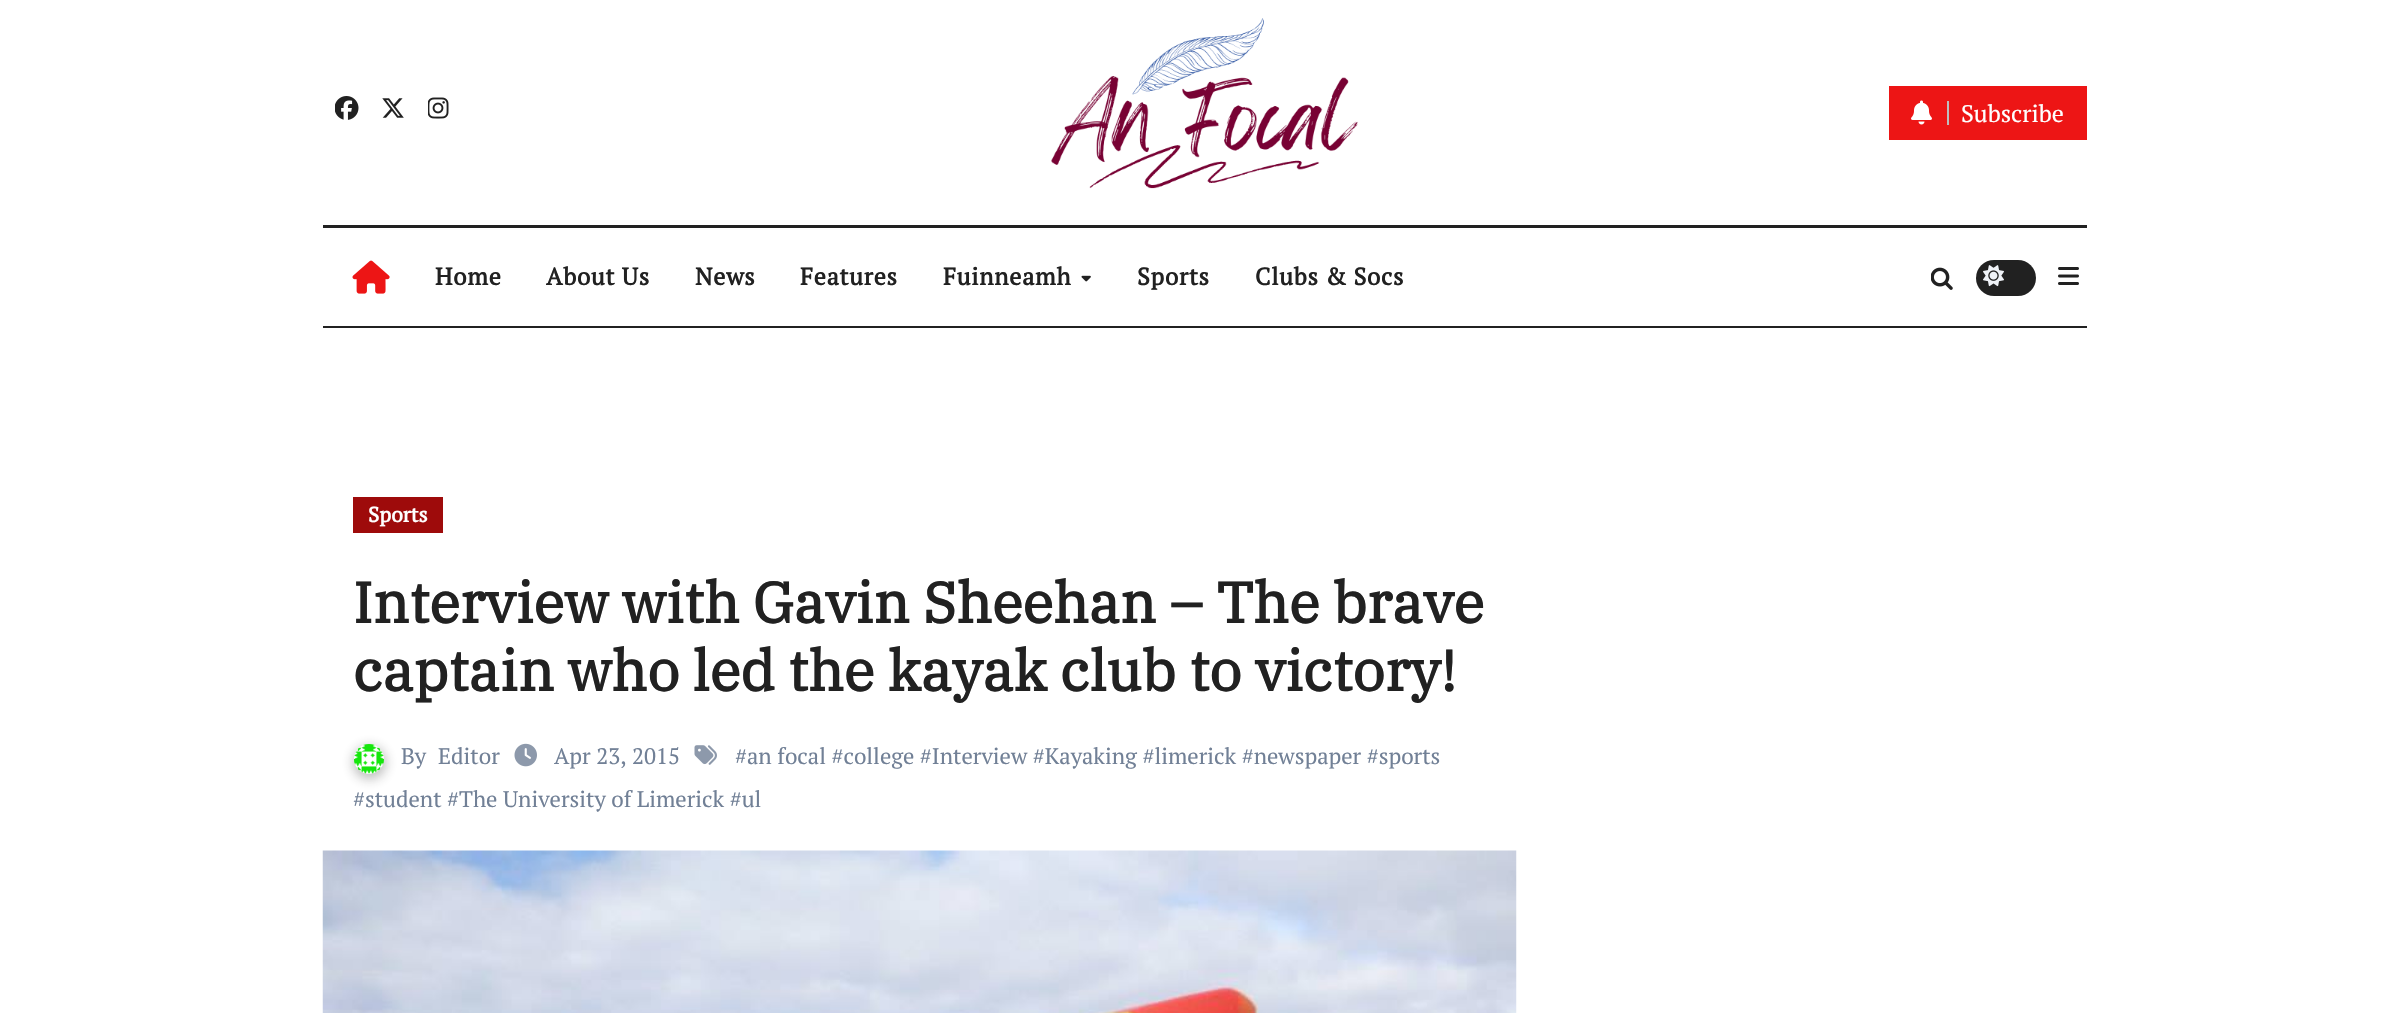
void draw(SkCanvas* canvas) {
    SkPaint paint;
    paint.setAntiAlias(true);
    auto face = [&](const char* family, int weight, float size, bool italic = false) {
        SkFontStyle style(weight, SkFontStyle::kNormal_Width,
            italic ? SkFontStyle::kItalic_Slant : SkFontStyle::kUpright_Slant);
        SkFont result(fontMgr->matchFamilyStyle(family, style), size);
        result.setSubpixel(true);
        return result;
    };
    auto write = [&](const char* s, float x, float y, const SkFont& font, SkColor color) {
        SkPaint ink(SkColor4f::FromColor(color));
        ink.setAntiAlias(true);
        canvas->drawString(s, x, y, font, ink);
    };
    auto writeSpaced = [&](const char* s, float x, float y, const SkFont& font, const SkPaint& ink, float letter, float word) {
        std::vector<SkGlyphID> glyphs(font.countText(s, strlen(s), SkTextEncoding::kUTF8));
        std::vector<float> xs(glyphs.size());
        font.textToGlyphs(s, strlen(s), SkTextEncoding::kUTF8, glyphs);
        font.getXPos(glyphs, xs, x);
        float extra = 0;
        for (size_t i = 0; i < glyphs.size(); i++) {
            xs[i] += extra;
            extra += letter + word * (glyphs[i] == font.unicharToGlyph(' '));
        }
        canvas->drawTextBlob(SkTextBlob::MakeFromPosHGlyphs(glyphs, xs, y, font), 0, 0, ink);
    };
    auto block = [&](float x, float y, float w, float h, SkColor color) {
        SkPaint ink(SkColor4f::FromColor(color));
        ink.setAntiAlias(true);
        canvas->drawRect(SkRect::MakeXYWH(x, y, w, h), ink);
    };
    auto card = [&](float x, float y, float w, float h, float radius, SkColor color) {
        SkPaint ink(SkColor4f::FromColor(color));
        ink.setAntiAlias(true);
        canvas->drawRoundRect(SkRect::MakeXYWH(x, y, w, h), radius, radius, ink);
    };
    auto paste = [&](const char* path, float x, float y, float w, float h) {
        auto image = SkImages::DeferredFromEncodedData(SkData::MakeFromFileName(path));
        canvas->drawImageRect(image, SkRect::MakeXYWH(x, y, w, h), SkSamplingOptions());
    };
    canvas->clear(SK_ColorWHITE);
    paste("pic1.png", 335, 96, 24, 24);
    paste("pic2.png", 382, 98, 22, 20);
    paste("pic3.png", 428, 97, 21, 22);
    paste("pic4.png", 1051, 18, 307, 171);
    block(1889, 86, 198, 54, SkColorSetRGB(237, 21, 21));
    paste("pic5.png", 1911, 100, 21, 25);
    block(1947, 101, 2, 24, SkColorSetRGB(189, 189, 189));
    auto kFont1 = face("PT Serif", 400, 24);
    write("Subscribe", 1961, 122, kFont1, SK_ColorWHITE);
    block(323, 225, 1764, 3, SkColorSetRGB(33, 33, 33));
    block(323, 326, 1764, 2, SkColorSetRGB(33, 33, 33));
    paste("pic6.png", 352, 260, 38, 34);
    auto kFont2 = face("PT Serif", 700, 24);
    paint.setColor(SkColorSetRGB(33, 33, 33));
    writeSpaced("Home", 435, 285, kFont2, paint, 0.75f, 0);
    writeSpaced("About Us", 546, 285, kFont2, paint, 0.75f, 0);
    writeSpaced("News", 695, 285, kFont2, paint, 0.75f, 0);
    writeSpaced("Features", 800, 285, kFont2, paint, 0.75f, 0);
    writeSpaced("Fuinneamh", 943, 285, kFont2, paint, 0.75f, 0);
    paste("pic7.png", 1081, 275, 10, 7);
    writeSpaced("Sports", 1137, 285, kFont2, paint, 0.75f, 0);
    writeSpaced("Clubs & Socs", 1255, 285, kFont2, paint, 0.75f, 0);
    paste("pic8.png", 1931, 267, 22, 23);
    card(1976, 260, 60, 36, 18, SkColorSetRGB(33, 33, 33));
    paste("pic9.png", 1983, 265, 21, 22);
    paste("pic10.png", 2058, 267, 21, 18);
    block(353, 497, 90, 36, SkColorSetRGB(158, 11, 11));
    auto kFont3 = face("PT Serif", 700, 21);
    write("Sports", 368, 522, kFont3, SK_ColorWHITE);
    auto kFont4 = face("IBM Plex Serif", 700, 57);
    write("Interview with Gavin Sheehan – The brave", 353, 623, kFont4, SkColorSetRGB(33, 33, 33));
    write("captain who led the kayak club to victory!", 353, 691, kFont4, SkColorSetRGB(33, 33, 33));
    paint.setColor(SkColorSetARGB(77, 33, 33, 33));
    paint.setMaskFilter(SkMaskFilter::MakeBlur(kNormal_SkBlurStyle, 6));
    canvas->drawRoundRect(SkRect::MakeXYWH(353, 746, 33, 33), 16.5f, 16.5f, paint);
    paint.setMaskFilter(nullptr);
    paste("pic11.png", 354, 744, 30, 30);
    paste("pic12.png", 694, 745, 23, 20);
    auto kFont5 = face("PT Serif", 400, 22.5f);
    write("#an focal #college #Interview #Kayaking #limerick #newspaper #sports", 735, 764, kFont5, SkColorSetRGB(113, 128, 150));
    write("#student #The University of Limerick #ul", 353, 807, kFont5, SkColorSetRGB(113, 128, 150));
    write("By", 401, 764, kFont5, SkColorSetRGB(113, 128, 150));
    write("Editor", 438, 764, kFont5, SkColorSetRGB(113, 128, 150));
    paste("pic13.png", 514, 743, 23, 24);
    write("Apr 23, 2015", 554, 764, kFont5, SkColorSetRGB(113, 128, 150));
    paste("pic14.png", 322, 850, 1195, 163);
}
